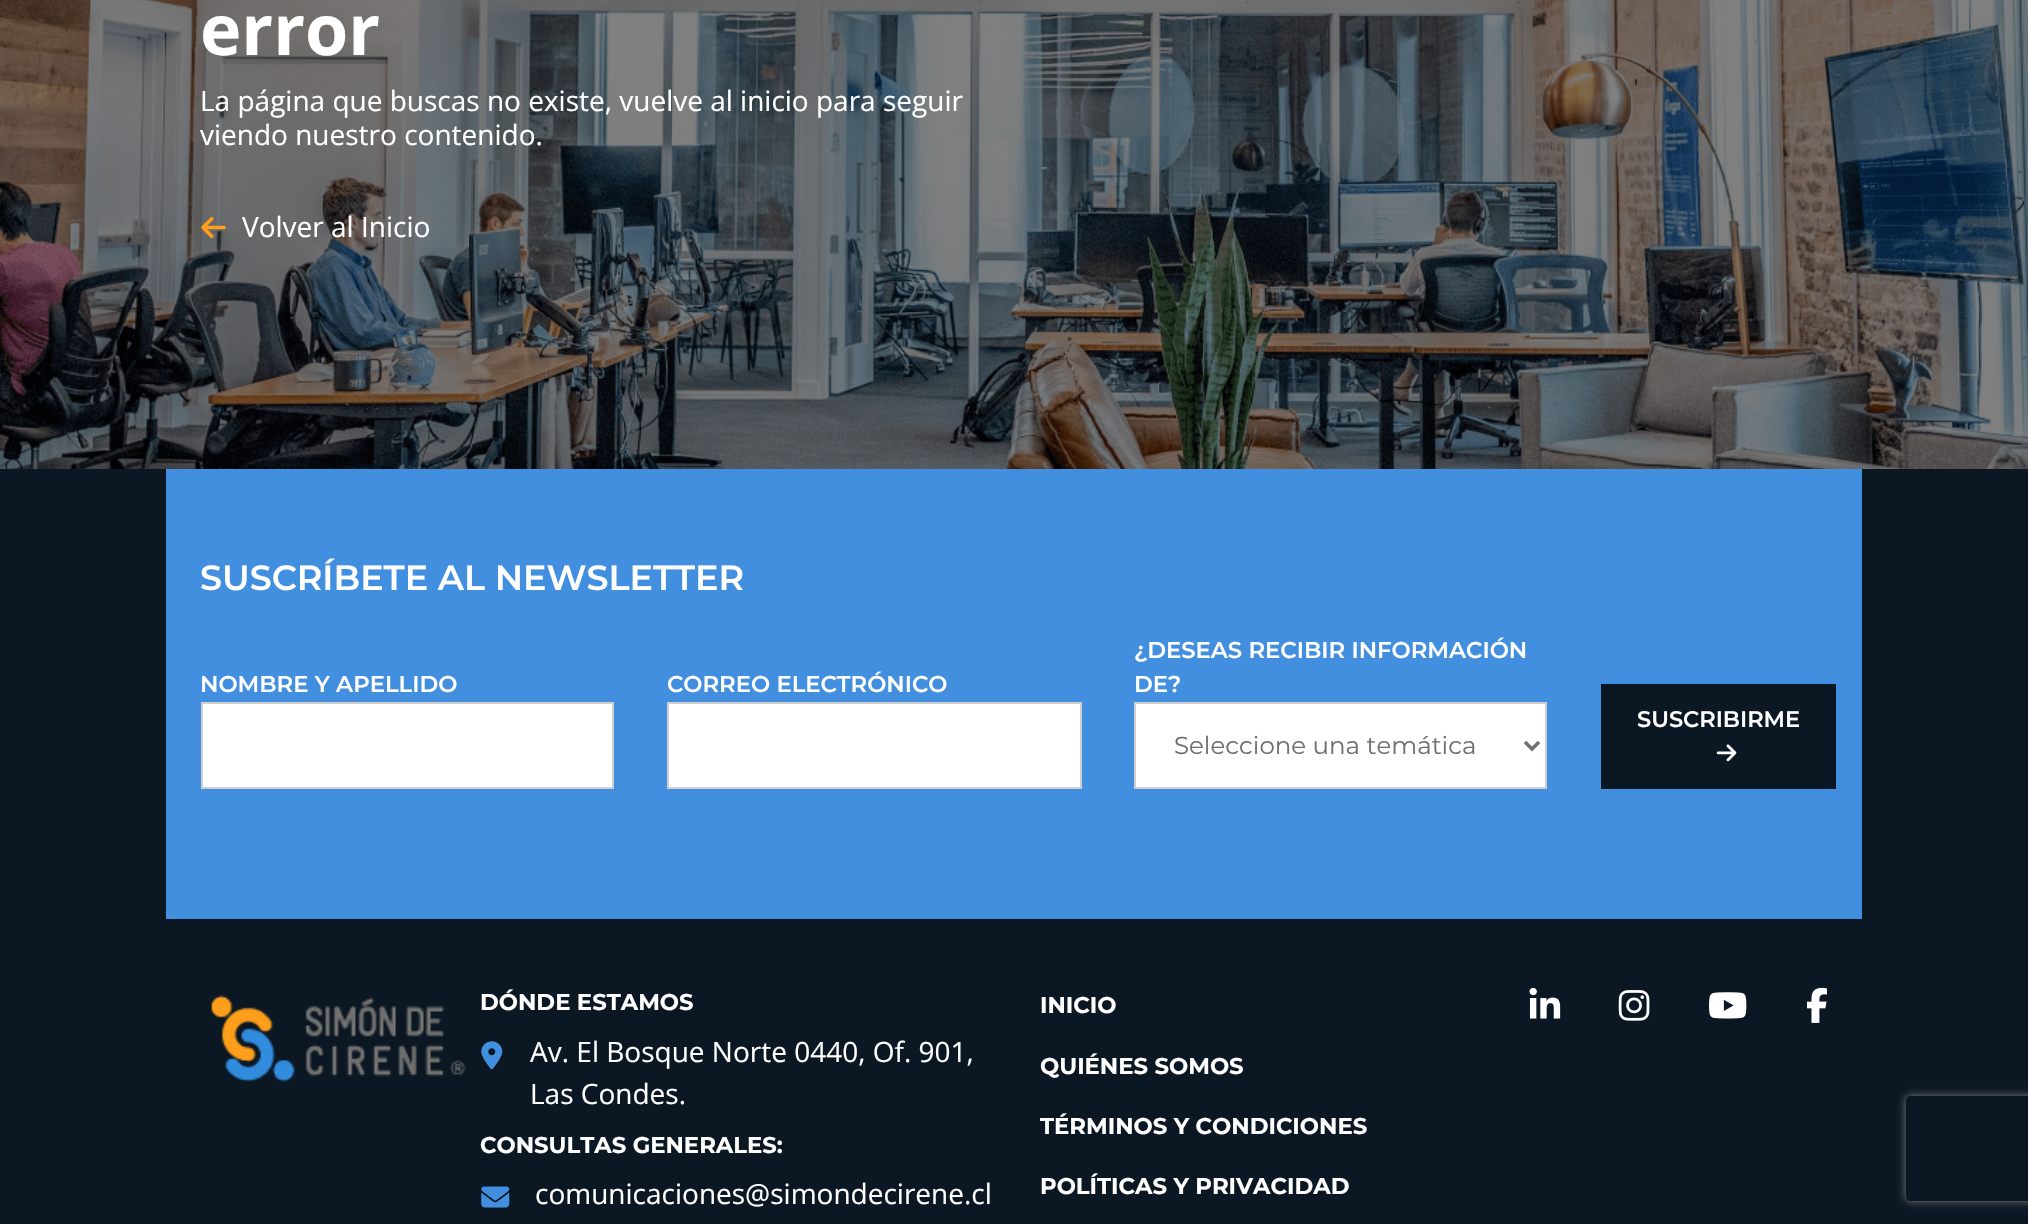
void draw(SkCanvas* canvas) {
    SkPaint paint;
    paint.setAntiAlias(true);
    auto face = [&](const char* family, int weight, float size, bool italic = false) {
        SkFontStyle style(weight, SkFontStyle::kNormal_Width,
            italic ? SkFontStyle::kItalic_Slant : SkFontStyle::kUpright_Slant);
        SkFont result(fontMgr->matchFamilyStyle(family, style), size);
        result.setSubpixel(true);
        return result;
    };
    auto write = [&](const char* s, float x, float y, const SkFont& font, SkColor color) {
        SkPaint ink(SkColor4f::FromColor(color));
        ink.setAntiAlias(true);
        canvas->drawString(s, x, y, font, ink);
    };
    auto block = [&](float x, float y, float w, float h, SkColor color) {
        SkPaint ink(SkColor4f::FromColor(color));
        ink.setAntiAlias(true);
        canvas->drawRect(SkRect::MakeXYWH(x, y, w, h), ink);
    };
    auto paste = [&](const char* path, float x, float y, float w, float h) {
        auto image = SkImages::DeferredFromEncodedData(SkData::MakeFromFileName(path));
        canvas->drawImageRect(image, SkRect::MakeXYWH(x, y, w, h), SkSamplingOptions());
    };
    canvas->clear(SkColorSetRGB(11, 23, 35));
    paste("pic1.png", 0, 0, 2028, 469);
    auto kFont1 = face("Open Sans", 700, 70);
    write("error", 200, 55, kFont1, SK_ColorWHITE);
    auto kFont2 = face("Open Sans", 400, 28);
    write("La página que buscas no existe, vuelve al inicio para seguir", 200, 111, kFont2, SK_ColorWHITE);
    write("viendo nuestro contenido.", 200, 145, kFont2, SK_ColorWHITE);
    paste("pic2.png", 201, 217, 25, 21);
    write("Volver al Inicio", 242, 237, kFont2, SK_ColorWHITE);
    block(166, 469, 1696, 450, SkColorSetRGB(65, 143, 222));
    auto kFont3 = face("Montserrat", 600, 35);
    write("SUSCRÍBETE AL NEWSLETTER", 200, 590, kFont3, SK_ColorWHITE);
    auto kFont4 = face("Montserrat", 600, 22.75f);
    write("NOMBRE Y APELLIDO", 200, 692, kFont4, SK_ColorWHITE);
    paint.setColor(SK_ColorWHITE);
    canvas->drawRect(SkRect::MakeXYWH(202, 703, 411, 85), paint);
    paint.setStyle(SkPaint::kStroke_Style);
    paint.setStrokeWidth(2);
    paint.setColor(SkColorSetRGB(207, 207, 207));
    canvas->drawRect(SkRect::MakeXYWH(202, 703, 411, 85), paint);
    write("CORREO ELECTRÓNICO", 667, 692, kFont4, SK_ColorWHITE);
    paint.setStyle(SkPaint::kFill_Style);
    paint.setColor(SK_ColorWHITE);
    canvas->drawRect(SkRect::MakeXYWH(668, 703, 413, 85), paint);
    paint.setStyle(SkPaint::kStroke_Style);
    paint.setColor(SkColorSetRGB(207, 207, 207));
    canvas->drawRect(SkRect::MakeXYWH(668, 703, 413, 85), paint);
    write("¿DESEAS RECIBIR INFORMACIÓN", 1134, 658, kFont4, SK_ColorWHITE);
    write("DE?", 1134, 692, kFont4, SK_ColorWHITE);
    paint.setStyle(SkPaint::kFill_Style);
    paint.setColor(SK_ColorWHITE);
    canvas->drawRect(SkRect::MakeXYWH(1135, 703, 411, 85), paint);
    paint.setStyle(SkPaint::kStroke_Style);
    paint.setColor(SkColorSetRGB(207, 207, 207));
    canvas->drawRect(SkRect::MakeXYWH(1135, 703, 411, 85), paint);
    paint.setStrokeWidth(3.5f);
    paint.setColor(SkColorSetRGB(111, 111, 111));
    canvas->drawPath(SkPathBuilder().moveTo(1525, 742).lineTo(1532, 749).lineTo(1539, 742).detach(), paint);
    auto kFont5 = face("Montserrat", 400, 24.5f);
    write("Seleccione una temática", 1174, 754, kFont5, SkColorSetRGB(111, 111, 111));
    block(1601, 684, 235, 105, SkColorSetRGB(11, 23, 35));
    auto kFont6 = face("Montserrat", 600, 22.5f);
    write("SUSCRIBIRME", 1637, 727, kFont6, SK_ColorWHITE);
    paste("pic3.png", 1716, 744, 21, 18);
    paste("pic4.png", 211, 995, 255, 87);
    auto kFont7 = face("Montserrat", 700, 22.75f);
    write("DÓNDE ESTAMOS", 480, 1010, kFont7, SK_ColorWHITE);
    paste("pic5.png", 481, 1041, 22, 29);
    write("Av. El Bosque Norte 0440, Of. 901,", 530, 1062, kFont2, SK_ColorWHITE);
    write("Las Condes.", 530, 1104, kFont2, SK_ColorWHITE);
    write("CONSULTAS GENERALES:", 480, 1153, kFont7, SK_ColorWHITE);
    paste("pic6.png", 481, 1186, 29, 22);
    write("comunicaciones@simondecirene.cl", 535, 1204, kFont2, SK_ColorWHITE);
    write("INICIO", 1040, 1013, kFont7, SK_ColorWHITE);
    write("QUIÉNES SOMOS", 1040, 1074, kFont7, SK_ColorWHITE);
    write("TÉRMINOS Y CONDICIONES", 1040, 1134, kFont7, SK_ColorWHITE);
    write("POLÍTICAS Y PRIVACIDAD", 1040, 1194, kFont7, SK_ColorWHITE);
    paste("pic7.png", 1529, 987, 32, 32);
    paste("pic8.png", 1618, 990, 32, 31);
    paste("pic9.png", 1709, 992, 38, 27);
    paste("pic10.png", 1806, 987, 21, 36);
    canvas->save();
    canvas->clipPath(SkPathBuilder(SkPathFillType::kEvenOdd).moveTo(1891, 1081).lineTo(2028, 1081).lineTo(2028, 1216).lineTo(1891, 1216).close().moveTo(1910, 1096).lineTo(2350, 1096).cubicTo(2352, 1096, 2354, 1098, 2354, 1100).lineTo(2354, 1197).cubicTo(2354, 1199, 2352, 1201, 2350, 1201).lineTo(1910, 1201).cubicTo(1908, 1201, 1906, 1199, 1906, 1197).lineTo(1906, 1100).cubicTo(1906, 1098, 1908, 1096, 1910, 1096).close().detach(), true);
    paint.setStyle(SkPaint::kFill_Style);
    paint.setColor(SkColorSetRGB(128, 128, 128));
    paint.setMaskFilter(SkMaskFilter::MakeBlur(kNormal_SkBlurStyle, 4.5f));
    canvas->drawRoundRect(SkRect::MakeXYWH(1906, 1096, 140, 105), 4, 4, paint);
    paint.setMaskFilter(nullptr);
    canvas->restore();
}
